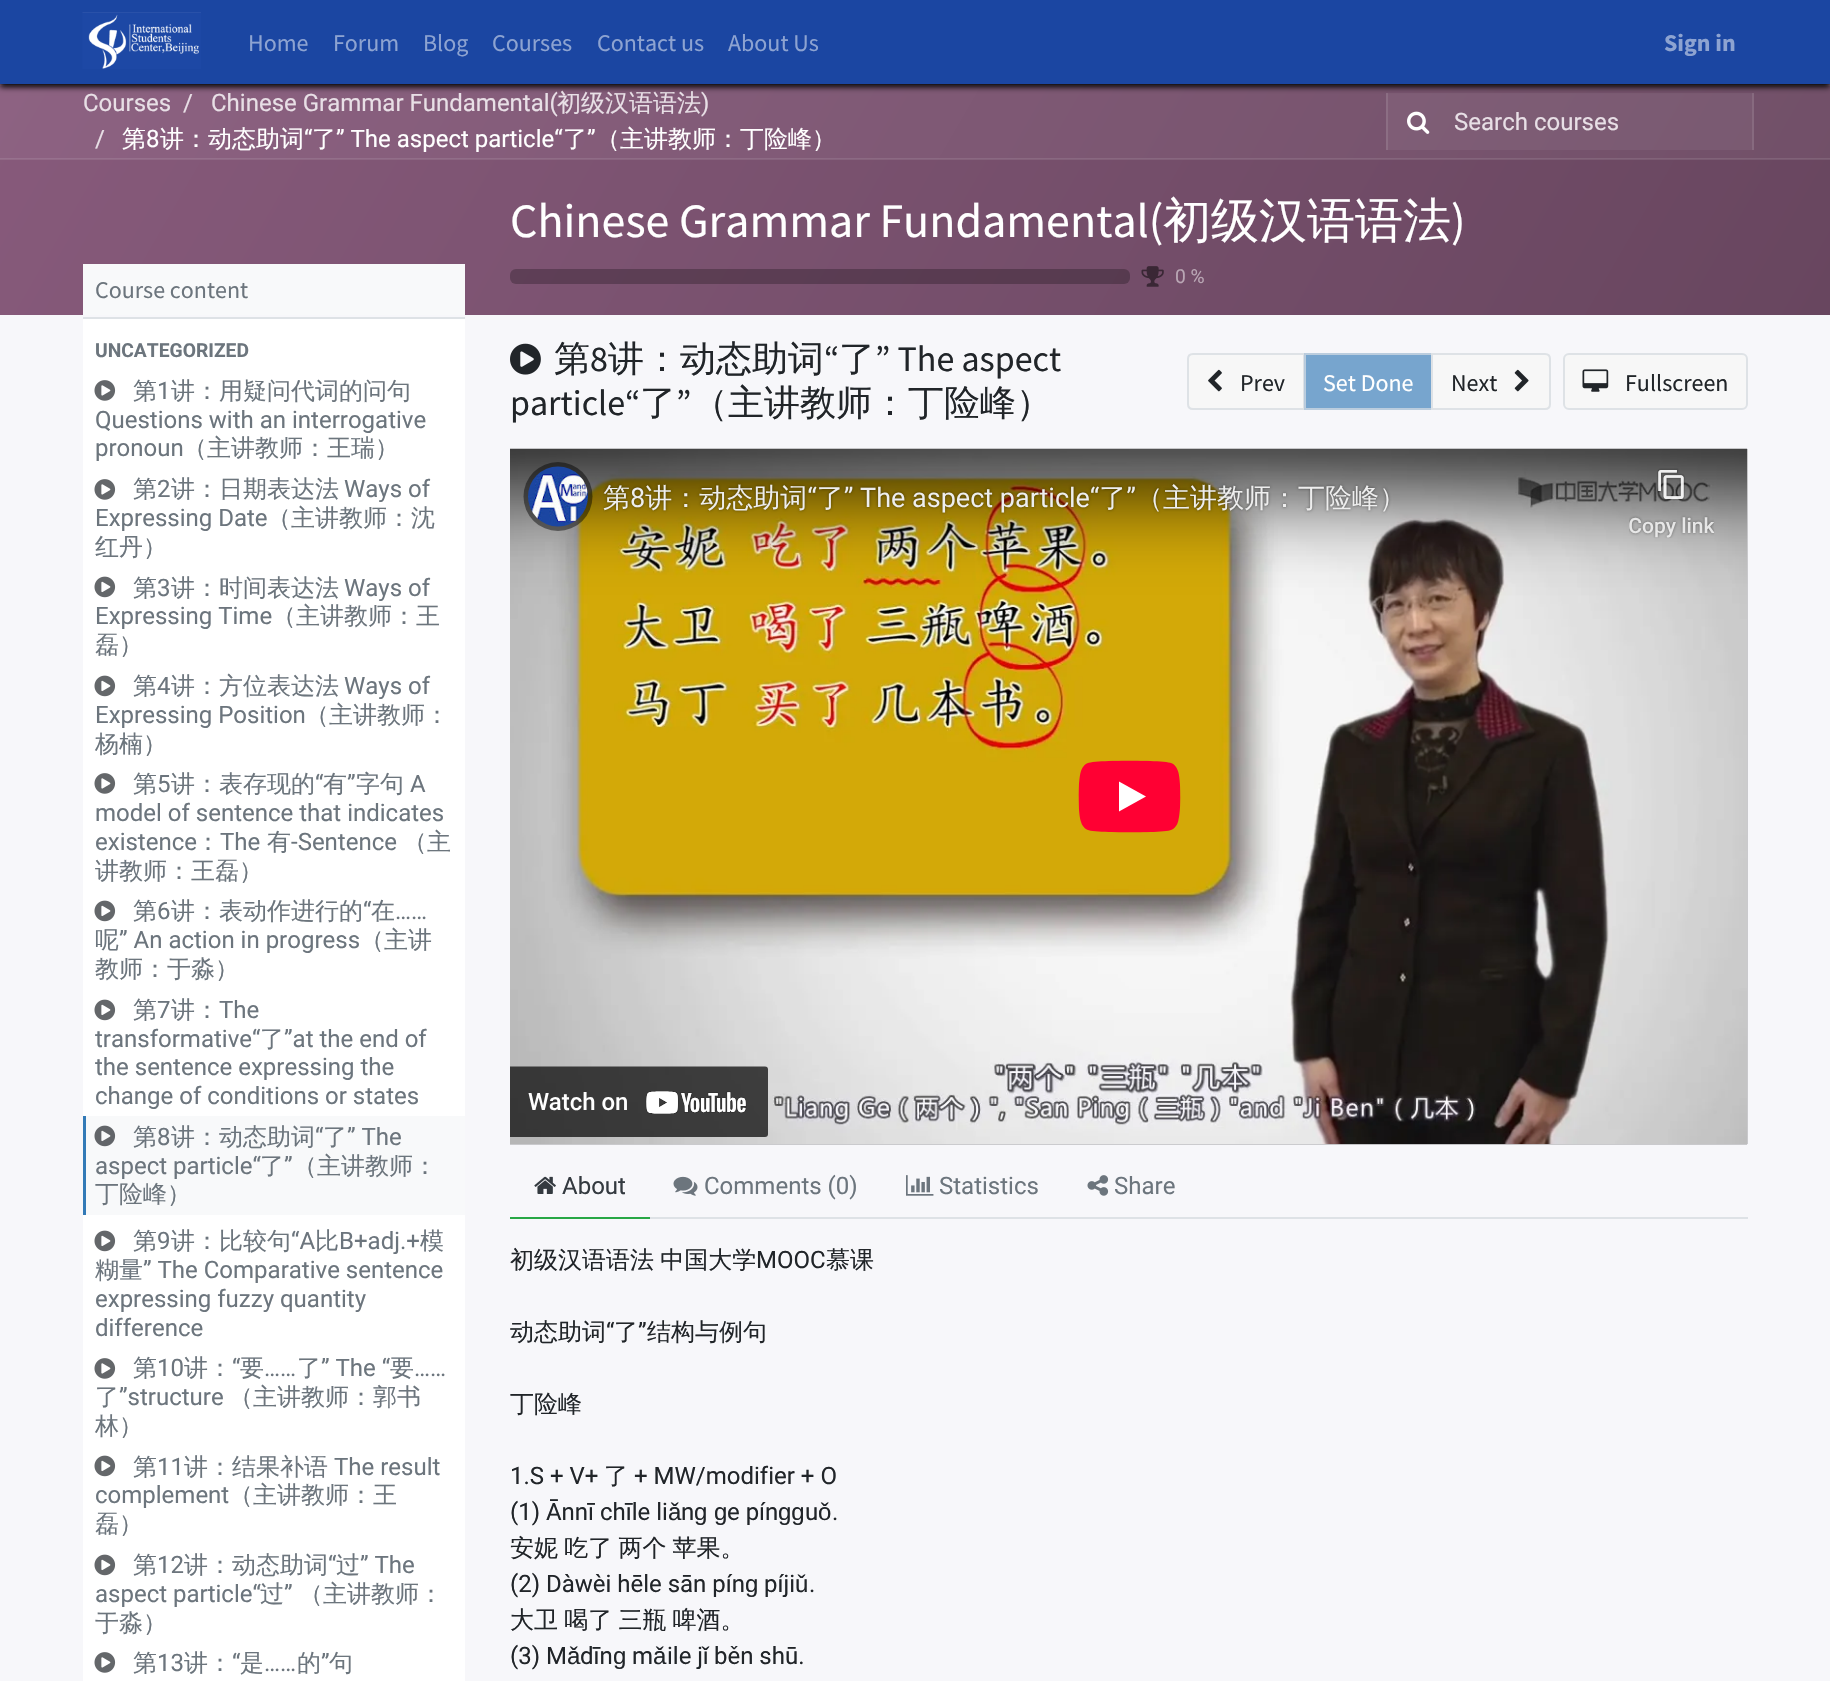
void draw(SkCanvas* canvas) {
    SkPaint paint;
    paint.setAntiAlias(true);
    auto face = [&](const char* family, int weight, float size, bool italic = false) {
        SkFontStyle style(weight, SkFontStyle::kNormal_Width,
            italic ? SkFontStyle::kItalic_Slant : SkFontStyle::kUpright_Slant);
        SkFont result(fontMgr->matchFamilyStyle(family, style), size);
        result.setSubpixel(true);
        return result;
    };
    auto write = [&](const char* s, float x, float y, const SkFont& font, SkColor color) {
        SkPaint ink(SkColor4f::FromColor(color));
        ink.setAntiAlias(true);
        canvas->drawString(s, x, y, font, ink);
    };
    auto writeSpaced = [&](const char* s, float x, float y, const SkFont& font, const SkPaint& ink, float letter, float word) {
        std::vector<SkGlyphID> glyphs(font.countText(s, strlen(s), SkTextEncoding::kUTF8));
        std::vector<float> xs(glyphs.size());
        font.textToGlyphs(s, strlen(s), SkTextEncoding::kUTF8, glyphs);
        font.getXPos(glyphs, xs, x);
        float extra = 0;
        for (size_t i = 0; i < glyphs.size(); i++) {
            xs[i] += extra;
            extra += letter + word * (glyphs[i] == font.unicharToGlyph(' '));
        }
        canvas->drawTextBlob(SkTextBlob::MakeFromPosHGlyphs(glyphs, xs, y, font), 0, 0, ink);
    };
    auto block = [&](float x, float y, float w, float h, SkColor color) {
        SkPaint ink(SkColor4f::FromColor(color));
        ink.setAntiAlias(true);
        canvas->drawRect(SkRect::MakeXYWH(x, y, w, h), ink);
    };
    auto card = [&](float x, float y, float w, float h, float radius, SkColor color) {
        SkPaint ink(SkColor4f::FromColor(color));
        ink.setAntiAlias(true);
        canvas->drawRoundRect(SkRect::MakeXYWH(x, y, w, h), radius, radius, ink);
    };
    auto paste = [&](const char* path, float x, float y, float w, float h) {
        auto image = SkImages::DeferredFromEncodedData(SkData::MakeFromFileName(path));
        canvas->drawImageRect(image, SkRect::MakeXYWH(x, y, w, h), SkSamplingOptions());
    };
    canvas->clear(SkColorSetRGB(247, 247, 250));
    {
        const SkColor colors[] = {SkColorSetRGB(141, 98, 130), SkColorSetRGB(112, 79, 103)};
        const float stops[] = {0, 1};
        const SkPoint ends[] = {{179, -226}, {1651, 625}};
        paint.setShader(SkGradientShader::MakeLinear(ends, colors, stops, 2, SkTileMode::kClamp));
        paint.setAlpha(255);
    }
    canvas->drawRect(SkRect::MakeXYWH(0, 86, 1830, 72), paint);
    {
        const SkColor colors[] = {SkColorSetRGB(147, 106, 136), SkColorSetRGB(119, 88, 111)};
        const float stops[] = {0, 1};
        const SkPoint ends[] = {{179, -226}, {1651, 625}};
        paint.setShader(SkGradientShader::MakeLinear(ends, colors, stops, 2, SkTileMode::kClamp));
        paint.setAlpha(255);
    }
    canvas->drawRect(SkRect::MakeXYWH(1388, 93, 364, 57), paint);
    {
        const SkColor colors[] = {SkColorSetRGB(152, 114, 143), SkColorSetRGB(126, 97, 118)};
        const float stops[] = {0, 1};
        const SkPoint ends[] = {{179, -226}, {1651, 625}};
        paint.setShader(SkGradientShader::MakeLinear(ends, colors, stops, 2, SkTileMode::kClamp));
        paint.setAlpha(255);
    }
    canvas->drawRect(SkRect::MakeXYWH(0, 84, 1830, 2), paint);
    block(1752, 93, 2, 57, SkColorSetRGB(135, 106, 127));
    block(1386, 93, 2, 57, SkColorSetRGB(140, 110, 132));
    paint.setShader(nullptr);
    paint.setColor(SK_ColorBLACK);
    paint.setMaskFilter(SkMaskFilter::MakeBlur(kNormal_SkBlurStyle, 3));
    canvas->drawRect(SkRect::MakeXYWH(0, 3, 1830, 84), paint);
    paint.setMaskFilter(nullptr);
    block(0, 0, 1830, 84, SkColorSetRGB(27, 70, 162));
    paste("pic1.png", 82, 12, 119, 57);
    auto kFont1 = face("Source Sans Pro", 400, 24);
    write("Home", 248, 51, kFont1, SkColorSetRGB(141, 163, 209));
    write("Forum", 333, 51, kFont1, SkColorSetRGB(141, 163, 209));
    write("Blog", 423, 51, kFont1, SkColorSetRGB(141, 163, 209));
    write("Courses", 492, 51, kFont1, SkColorSetRGB(141, 163, 209));
    write("Contact us", 597, 51, kFont1, SkColorSetRGB(141, 163, 209));
    write("About Us", 728, 51, kFont1, SkColorSetRGB(141, 163, 209));
    auto kFont2 = face("Source Sans Pro", 700, 24);
    write("Sign in", 1664, 51, kFont2, SkColorSetRGB(141, 163, 209));
    {
        const SkColor colors[] = {SkColorSetRGB(135, 90, 123), SkColorSetRGB(104, 70, 95)};
        const float stops[] = {0, 1};
        const SkPoint ends[] = {{179, -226}, {1651, 625}};
        paint.setShader(SkGradientShader::MakeLinear(ends, colors, stops, 2, SkTileMode::kClamp));
        paint.setAlpha(255);
    }
    canvas->drawRect(SkRect::MakeXYWH(0, 160, 1830, 155), paint);
    {
        const SkColor colors[] = {SkColorSetRGB(147, 107, 136), SkColorSetRGB(119, 89, 111)};
        const float stops[] = {0, 1};
        const SkPoint ends[] = {{179, -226}, {1651, 625}};
        paint.setShader(SkGradientShader::MakeLinear(ends, colors, stops, 2, SkTileMode::kClamp));
        paint.setAlpha(255);
    }
    canvas->drawRect(SkRect::MakeXYWH(0, 159, 1830, 1), paint);
    {
        const SkColor colors[] = {SkColorSetRGB(152, 114, 143), SkColorSetRGB(126, 97, 118)};
        const float stops[] = {0, 1};
        const SkPoint ends[] = {{179, -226}, {1651, 625}};
        paint.setShader(SkGradientShader::MakeLinear(ends, colors, stops, 2, SkTileMode::kClamp));
        paint.setAlpha(255);
    }
    canvas->drawRect(SkRect::MakeXYWH(0, 158, 1830, 1), paint);
    auto kFont3 = face("Roboto", 400, 24);
    write("Courses", 83, 111, kFont3, SkColorSetRGB(232, 223, 230));
    write("/", 183, 111, kFont3, SkColorSetRGB(232, 223, 230));
    write("Chinese Grammar Fundamental(", 211, 111, kFont3, SkColorSetRGB(232, 223, 230));
    auto kFont4 = face("WenQuanYi Zen Hei", 500, 24);
    write("初级汉语语法", 557, 111, kFont4, SkColorSetRGB(232, 223, 230));
    write(")", 701, 111, kFont3, SkColorSetRGB(232, 223, 230));
    write("/", 95, 147, kFont3, SkColorSetRGB(232, 223, 230));
    write("第", 122, 147, kFont4, SK_ColorWHITE);
    write("8", 146, 147, kFont3, SK_ColorWHITE);
    write("讲：动态助词", 160, 147, kFont4, SK_ColorWHITE);
    write("“", 304, 147, kFont3, SK_ColorWHITE);
    write("了", 312, 147, kFont4, SK_ColorWHITE);
    write("” The aspect particle“", 336, 147, kFont3, SK_ColorWHITE);
    write("了", 563, 147, kFont4, SK_ColorWHITE);
    write("”", 587, 147, kFont3, SK_ColorWHITE);
    write("（主讲教师：丁险峰）", 596, 147, kFont4, SK_ColorWHITE);
    paste("pic2.png", 1407, 111, 23, 23);
    write("Search courses", 1454, 130, kFont3, SkColorSetRGB(232, 223, 230));
    auto kFont5 = face("Source Sans Pro", 400, 48);
    write("Chinese Grammar Fundamental(", 510, 237, kFont5, SK_ColorWHITE);
    auto kFont6 = face("WenQuanYi Zen Hei", 500, 48);
    write("初级汉语语法", 1163, 237, kFont6, SK_ColorWHITE);
    write(")", 1451, 237, kFont5, SK_ColorWHITE);
    card(510, 269, 620, 15, 6, SkColorSetARGB(64, 0, 0, 0));
    paste("pic3.png", 1141, 266, 23, 21);
    auto kFont7 = face("Roboto", 400, 19.25f);
    write("0 %", 1175, 283, kFont7, SkColorSetRGB(185, 166, 180));
    block(83, 319, 382, 1362, SK_ColorWHITE);
    block(83, 264, 382, 51, SkColorSetRGB(248, 249, 250));
    block(83, 317, 382, 2, SkColorSetRGB(222, 226, 230));
    write("Course content", 95, 298, kFont1, SkColorSetRGB(108, 117, 125));
    auto kFont8 = face("Roboto", 700, 19.25f);
    write("UNCATEGORIZED", 95, 357, kFont8, SkColorSetRGB(108, 117, 125));
    paste("pic4.png", 94, 380, 22, 21);
    write("第", 133, 399, kFont4, SkColorSetRGB(108, 117, 125));
    write("1", 157, 399, kFont3, SkColorSetRGB(108, 117, 125));
    write("讲：用疑问代词的问句", 171, 399, kFont4, SkColorSetRGB(108, 117, 125));
    write("Questions with an interrogative", 95, 428, kFont3, SkColorSetRGB(108, 117, 125));
    write("pronoun", 95, 456, kFont3, SkColorSetRGB(108, 117, 125));
    write("（主讲教师：王瑞）", 183, 456, kFont4, SkColorSetRGB(108, 117, 125));
    paste("pic4.png", 94, 479, 22, 21);
    write("第", 133, 497, kFont4, SkColorSetRGB(108, 117, 125));
    write("2", 157, 497, kFont3, SkColorSetRGB(108, 117, 125));
    write("讲：日期表达法", 171, 497, kFont4, SkColorSetRGB(108, 117, 125));
    write("Ways of", 344, 497, kFont3, SkColorSetRGB(108, 117, 125));
    write("Expressing Date", 95, 526, kFont3, SkColorSetRGB(108, 117, 125));
    write("（主讲教师：沈", 267, 526, kFont4, SkColorSetRGB(108, 117, 125));
    write("红丹）", 95, 555, kFont4, SkColorSetRGB(108, 117, 125));
    paste("pic5.png", 94, 576, 22, 22);
    write("第", 133, 596, kFont4, SkColorSetRGB(108, 117, 125));
    write("3", 157, 596, kFont3, SkColorSetRGB(108, 117, 125));
    write("讲：时间表达法", 171, 596, kFont4, SkColorSetRGB(108, 117, 125));
    write("Ways of", 344, 596, kFont3, SkColorSetRGB(108, 117, 125));
    write("Expressing Time", 95, 624, kFont3, SkColorSetRGB(108, 117, 125));
    write("（主讲教师：王", 272, 624, kFont4, SkColorSetRGB(108, 117, 125));
    write("磊）", 95, 653, kFont4, SkColorSetRGB(108, 117, 125));
    paste("pic5.png", 94, 675, 22, 22);
    write("第", 133, 694, kFont4, SkColorSetRGB(108, 117, 125));
    write("4", 157, 694, kFont3, SkColorSetRGB(108, 117, 125));
    write("讲：方位表达法", 171, 694, kFont4, SkColorSetRGB(108, 117, 125));
    write("Ways of", 344, 694, kFont3, SkColorSetRGB(108, 117, 125));
    write("Expressing Position", 95, 723, kFont3, SkColorSetRGB(108, 117, 125));
    write("（主讲教师：", 305, 723, kFont4, SkColorSetRGB(108, 117, 125));
    write("杨楠）", 95, 752, kFont4, SkColorSetRGB(108, 117, 125));
    paste("pic4.png", 94, 773, 22, 21);
    write("第", 133, 792, kFont4, SkColorSetRGB(108, 117, 125));
    write("5", 157, 792, kFont3, SkColorSetRGB(108, 117, 125));
    write("讲：表存现的", 171, 792, kFont4, SkColorSetRGB(108, 117, 125));
    write("“", 315, 792, kFont3, SkColorSetRGB(108, 117, 125));
    write("有", 323, 792, kFont4, SkColorSetRGB(108, 117, 125));
    write("”", 347, 792, kFont3, SkColorSetRGB(108, 117, 125));
    write("字句", 356, 792, kFont4, SkColorSetRGB(108, 117, 125));
    write("A", 410, 792, kFont3, SkColorSetRGB(108, 117, 125));
    write("model of sentence that indicates", 95, 821, kFont3, SkColorSetRGB(108, 117, 125));
    write("existence", 95, 850, kFont3, SkColorSetRGB(108, 117, 125));
    write("：", 196, 850, kFont4, SkColorSetRGB(108, 117, 125));
    write("The", 220, 850, kFont3, SkColorSetRGB(108, 117, 125));
    write("有", 267, 850, kFont4, SkColorSetRGB(108, 117, 125));
    write("-Sentence", 291, 850, kFont3, SkColorSetRGB(108, 117, 125));
    write("（主", 403, 850, kFont4, SkColorSetRGB(108, 117, 125));
    write("讲教师：王磊）", 95, 879, kFont4, SkColorSetRGB(108, 117, 125));
    paste("pic5.png", 94, 900, 22, 22);
    write("第", 133, 919, kFont4, SkColorSetRGB(108, 117, 125));
    write("6", 157, 919, kFont3, SkColorSetRGB(108, 117, 125));
    write("讲：表动作进行的", 171, 919, kFont4, SkColorSetRGB(108, 117, 125));
    write("“", 363, 919, kFont3, SkColorSetRGB(108, 117, 125));
    write("在", 371, 919, kFont4, SkColorSetRGB(108, 117, 125));
    write("……", 395, 919, kFont3, SkColorSetRGB(108, 117, 125));
    write("呢", 95, 948, kFont4, SkColorSetRGB(108, 117, 125));
    write("” An action in progress", 119, 948, kFont3, SkColorSetRGB(108, 117, 125));
    write("（主讲", 360, 948, kFont4, SkColorSetRGB(108, 117, 125));
    write("教师：于淼）", 95, 977, kFont4, SkColorSetRGB(108, 117, 125));
    paste("pic5.png", 94, 999, 22, 22);
    write("第", 133, 1018, kFont4, SkColorSetRGB(108, 117, 125));
    write("7", 157, 1018, kFont3, SkColorSetRGB(108, 117, 125));
    write("讲：", 171, 1018, kFont4, SkColorSetRGB(108, 117, 125));
    write("The", 219, 1018, kFont3, SkColorSetRGB(108, 117, 125));
    write("transformative“", 95, 1047, kFont3, SkColorSetRGB(108, 117, 125));
    write("了", 260, 1047, kFont4, SkColorSetRGB(108, 117, 125));
    write("”at the end of", 284, 1047, kFont3, SkColorSetRGB(108, 117, 125));
    write("the sentence expressing the", 95, 1075, kFont3, SkColorSetRGB(108, 117, 125));
    write("change of conditions or states", 95, 1104, kFont3, SkColorSetRGB(108, 117, 125));
    block(86, 1116, 379, 99, SkColorSetRGB(248, 249, 250));
    block(83, 1116, 3, 99, SkColorSetRGB(51, 122, 183));
    paste("pic6.png", 94, 1125, 22, 22);
    write("第", 133, 1145, kFont4, SkColorSetRGB(108, 117, 125));
    write("8", 157, 1145, kFont3, SkColorSetRGB(108, 117, 125));
    write("讲：动态助词", 171, 1145, kFont4, SkColorSetRGB(108, 117, 125));
    write("“", 315, 1145, kFont3, SkColorSetRGB(108, 117, 125));
    write("了", 323, 1145, kFont4, SkColorSetRGB(108, 117, 125));
    write("” The", 347, 1145, kFont3, SkColorSetRGB(108, 117, 125));
    write("aspect particle“", 95, 1174, kFont3, SkColorSetRGB(108, 117, 125));
    write("了", 260, 1174, kFont4, SkColorSetRGB(108, 117, 125));
    write("”", 284, 1174, kFont3, SkColorSetRGB(108, 117, 125));
    write("（主讲教师：", 293, 1174, kFont4, SkColorSetRGB(108, 117, 125));
    write("丁险峰）", 95, 1202, kFont4, SkColorSetRGB(108, 117, 125));
    paste("pic5.png", 94, 1230, 22, 22);
    write("第", 133, 1249, kFont4, SkColorSetRGB(108, 117, 125));
    write("9", 157, 1249, kFont3, SkColorSetRGB(108, 117, 125));
    write("讲：比较句", 171, 1249, kFont4, SkColorSetRGB(108, 117, 125));
    write("“A", 291, 1249, kFont3, SkColorSetRGB(108, 117, 125));
    write("比", 315, 1249, kFont4, SkColorSetRGB(108, 117, 125));
    write("B+adj.+", 339, 1249, kFont3, SkColorSetRGB(108, 117, 125));
    write("模", 420, 1249, kFont4, SkColorSetRGB(108, 117, 125));
    write("糊量", 95, 1278, kFont4, SkColorSetRGB(108, 117, 125));
    write("” The Comparative sentence", 143, 1278, kFont3, SkColorSetRGB(108, 117, 125));
    write("expressing fuzzy quantity", 95, 1307, kFont3, SkColorSetRGB(108, 117, 125));
    write("difference", 95, 1336, kFont3, SkColorSetRGB(108, 117, 125));
    paste("pic4.png", 94, 1358, 22, 21);
    write("第", 133, 1376, kFont4, SkColorSetRGB(108, 117, 125));
    write("10", 157, 1376, kFont3, SkColorSetRGB(108, 117, 125));
    write("讲：", 184, 1376, kFont4, SkColorSetRGB(108, 117, 125));
    write("“", 232, 1376, kFont3, SkColorSetRGB(108, 117, 125));
    write("要", 240, 1376, kFont4, SkColorSetRGB(108, 117, 125));
    write("……", 264, 1376, kFont3, SkColorSetRGB(108, 117, 125));
    write("了", 297, 1376, kFont4, SkColorSetRGB(108, 117, 125));
    write("” The “", 321, 1376, kFont3, SkColorSetRGB(108, 117, 125));
    write("要", 390, 1376, kFont4, SkColorSetRGB(108, 117, 125));
    write("……", 414, 1376, kFont3, SkColorSetRGB(108, 117, 125));
    write("了", 95, 1405, kFont4, SkColorSetRGB(108, 117, 125));
    write("”structure", 119, 1405, kFont3, SkColorSetRGB(108, 117, 125));
    write("（主讲教师：郭书", 229, 1405, kFont4, SkColorSetRGB(108, 117, 125));
    write("林）", 95, 1434, kFont4, SkColorSetRGB(108, 117, 125));
    paste("pic5.png", 94, 1455, 22, 22);
    write("第", 133, 1475, kFont4, SkColorSetRGB(108, 117, 125));
    write("11", 157, 1475, kFont3, SkColorSetRGB(108, 117, 125));
    write("讲：结果补语", 184, 1475, kFont4, SkColorSetRGB(108, 117, 125));
    write("The result", 334, 1475, kFont3, SkColorSetRGB(108, 117, 125));
    write("complement", 95, 1503, kFont3, SkColorSetRGB(108, 117, 125));
    write("（主讲教师：王", 229, 1503, kFont4, SkColorSetRGB(108, 117, 125));
    write("磊）", 95, 1532, kFont4, SkColorSetRGB(108, 117, 125));
    paste("pic5.png", 94, 1554, 22, 22);
    write("第", 133, 1573, kFont4, SkColorSetRGB(108, 117, 125));
    write("12", 157, 1573, kFont3, SkColorSetRGB(108, 117, 125));
    write("讲：动态助词", 184, 1573, kFont4, SkColorSetRGB(108, 117, 125));
    write("“", 328, 1573, kFont3, SkColorSetRGB(108, 117, 125));
    write("过", 336, 1573, kFont4, SkColorSetRGB(108, 117, 125));
    write("” The", 360, 1573, kFont3, SkColorSetRGB(108, 117, 125));
    write("aspect particle“", 95, 1602, kFont3, SkColorSetRGB(108, 117, 125));
    write("过", 260, 1602, kFont4, SkColorSetRGB(108, 117, 125));
    write("”", 284, 1602, kFont3, SkColorSetRGB(108, 117, 125));
    write("（主讲教师：", 299, 1602, kFont4, SkColorSetRGB(108, 117, 125));
    write("于淼）", 95, 1631, kFont4, SkColorSetRGB(108, 117, 125));
    paste("pic4.png", 94, 1652, 22, 21);
    write("第", 133, 1671, kFont4, SkColorSetRGB(108, 117, 125));
    write("13", 157, 1671, kFont3, SkColorSetRGB(108, 117, 125));
    write("讲：", 184, 1671, kFont4, SkColorSetRGB(108, 117, 125));
    write("“", 232, 1671, kFont3, SkColorSetRGB(108, 117, 125));
    write("是", 240, 1671, kFont4, SkColorSetRGB(108, 117, 125));
    write("的", 297, 1671, kFont4, SkColorSetRGB(108, 117, 125));
    write("”", 321, 1671, kFont3, SkColorSetRGB(108, 117, 125));
    write("句", 329, 1671, kFont4, SkColorSetRGB(108, 117, 125));
    write("……", 264, 1671, kFont3, SkColorSetRGB(108, 117, 125));
    paste("pic7.png", 510, 343, 31, 32);
    auto kFont9 = face("WenQuanYi Zen Hei", 500, 36);
    write("第", 554, 371, kFont9, SkColorSetRGB(33, 37, 41));
    auto kFont10 = face("Source Sans Pro", 400, 36);
    write("8", 590, 371, kFont10, SkColorSetRGB(33, 37, 41));
    write("讲：动态助词", 608, 371, kFont9, SkColorSetRGB(33, 37, 41));
    write("“", 824, 371, kFont10, SkColorSetRGB(33, 37, 41));
    write("了", 839, 371, kFont9, SkColorSetRGB(33, 37, 41));
    write("” The aspect", 875, 371, kFont10, SkColorSetRGB(33, 37, 41));
    write("particle“", 510, 415, kFont10, SkColorSetRGB(33, 37, 41));
    write("了", 640, 415, kFont9, SkColorSetRGB(33, 37, 41));
    write("”", 676, 415, kFont10, SkColorSetRGB(33, 37, 41));
    write("（主讲教师：丁险峰）", 692, 415, kFont9, SkColorSetRGB(33, 37, 41));
    paint.setShader(nullptr);
    paint.setColor(SkColorSetRGB(247, 247, 247));
    canvas->drawPath(SkPathBuilder().moveTo(1193, 354).lineTo(1304, 354).lineTo(1304, 409).lineTo(1193, 409).cubicTo(1190, 409, 1188, 407, 1188, 404).lineTo(1188, 359).cubicTo(1188, 356, 1190, 354, 1193, 354).close().detach(), paint);
    paint.setStyle(SkPaint::kStroke_Style);
    paint.setStrokeWidth(2);
    paint.setColor(SkColorSetRGB(222, 226, 230));
    canvas->drawPath(SkPathBuilder().moveTo(1193, 354).lineTo(1304, 354).lineTo(1304, 409).lineTo(1193, 409).cubicTo(1190, 409, 1188, 407, 1188, 404).lineTo(1188, 359).cubicTo(1188, 356, 1190, 354, 1193, 354).close().detach(), paint);
    paste("pic8.png", 1208, 369, 14, 23);
    write("Prev", 1240, 391, kFont1, SkColorSetRGB(33, 37, 41));
    block(1304, 353, 127, 57, SkColorSetARGB(166, 51, 122, 183));
    paint.setColor(SkColorSetARGB(166, 222, 226, 230));
    canvas->drawRect(SkRect::MakeXYWH(1305, 354, 127, 55), paint);
    write("Set Done", 1323, 391, kFont1, SK_ColorWHITE);
    paint.setStyle(SkPaint::kFill_Style);
    paint.setColor(SkColorSetRGB(247, 247, 247));
    canvas->drawPath(SkPathBuilder().moveTo(1432, 354).lineTo(1545, 354).cubicTo(1548, 354, 1550, 356, 1550, 359).lineTo(1550, 404).cubicTo(1550, 407, 1548, 409, 1545, 409).lineTo(1432, 409).close().detach(), paint);
    paint.setStyle(SkPaint::kStroke_Style);
    paint.setColor(SkColorSetRGB(222, 226, 230));
    canvas->drawPath(SkPathBuilder().moveTo(1432, 354).lineTo(1545, 354).cubicTo(1548, 354, 1550, 356, 1550, 359).lineTo(1550, 404).cubicTo(1550, 407, 1548, 409, 1545, 409).lineTo(1432, 409).close().detach(), paint);
    write("Next", 1451, 391, kFont1, SkColorSetRGB(33, 37, 41));
    paste("pic9.png", 1514, 369, 15, 23);
    paint.setStyle(SkPaint::kFill_Style);
    paint.setColor(SkColorSetRGB(247, 247, 247));
    canvas->drawRoundRect(SkRect::MakeXYWH(1564, 354, 183, 55), 5, 5, paint);
    paint.setStyle(SkPaint::kStroke_Style);
    paint.setColor(SkColorSetRGB(222, 226, 230));
    canvas->drawRoundRect(SkRect::MakeXYWH(1564, 354, 183, 55), 5, 5, paint);
    paste("pic10.png", 1582, 369, 27, 23);
    write("Fullscreen", 1625, 391, kFont1, SkColorSetRGB(33, 37, 41));
    paste("pic11.png", 510, 448, 1238, 697);
    block(650, 1217, 1098, 2, SkColorSetRGB(222, 226, 230));
    block(510, 1217, 140, 2, SkColorSetRGB(40, 167, 69));
    paste("pic12.png", 534, 1176, 22, 18);
    write("About", 562, 1194, kFont3, SkColorSetRGB(52, 58, 64));
    paste("pic13.png", 673, 1176, 25, 20);
    write("Comments (0)", 704, 1194, kFont3, SkColorSetRGB(108, 117, 125));
    paste("pic14.png", 906, 1175, 28, 21);
    write("Statistics", 939, 1194, kFont3, SkColorSetRGB(108, 117, 125));
    paste("pic15.png", 1087, 1175, 22, 21);
    write("Share", 1114, 1194, kFont3, SkColorSetRGB(108, 117, 125));
    paint.setStyle(SkPaint::kFill_Style);
    paint.setColor(SkColorSetRGB(33, 37, 41));
    writeSpaced("初级汉语语法 中国大学", 510, 1268, kFont4, paint, 0, -1);
    write("MOOC", 756, 1268, kFont3, SkColorSetRGB(33, 37, 41));
    write("慕课", 826, 1268, kFont4, SkColorSetRGB(33, 37, 41));
    write("动态助词", 510, 1340, kFont4, SkColorSetRGB(33, 37, 41));
    write("“", 606, 1340, kFont3, SkColorSetRGB(33, 37, 41));
    write("了", 614, 1340, kFont4, SkColorSetRGB(33, 37, 41));
    write("”", 638, 1340, kFont3, SkColorSetRGB(33, 37, 41));
    write("结构与例句", 647, 1340, kFont4, SkColorSetRGB(33, 37, 41));
    write("丁险峰", 510, 1412, kFont4, SkColorSetRGB(33, 37, 41));
    write("1.S + V+", 510, 1484, kFont3, SkColorSetRGB(33, 37, 41));
    write("了", 604, 1484, kFont4, SkColorSetRGB(33, 37, 41));
    write("+ MW/modifier + O", 634, 1484, kFont3, SkColorSetRGB(33, 37, 41));
    auto kFont11 = face("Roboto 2", 400, 24);
    write("(1) Ānnī chīle li", 510, 1520, kFont11, SkColorSetRGB(33, 37, 41));
    auto kFont12 = face("Liberation Sans", 400, 24);
    write("ǎ", 668, 1520, kFont12, SkColorSetRGB(33, 37, 41));
    write("n", 681, 1520, kFont11, SkColorSetRGB(33, 37, 41));
    write("ɡ", 694, 1520, kFont12, SkColorSetRGB(33, 37, 41));
    write("ɡ", 714, 1520, kFont12, SkColorSetRGB(33, 37, 41));
    write("e pín", 727, 1520, kFont11, SkColorSetRGB(33, 37, 41));
    write("ɡɡ", 778, 1520, kFont12, SkColorSetRGB(33, 37, 41));
    write("u", 805, 1520, kFont11, SkColorSetRGB(33, 37, 41));
    write("ǒ", 818, 1520, kFont12, SkColorSetRGB(33, 37, 41));
    write(".", 832, 1520, kFont11, SkColorSetRGB(33, 37, 41));
    writeSpaced("安妮 吃了 两个 苹果。", 510, 1556, kFont4, paint, 0, -1);
    write("(2) Dàwèi hēle sān pín", 510, 1592, kFont11, SkColorSetRGB(33, 37, 41));
    write("ɡ", 745, 1592, kFont12, SkColorSetRGB(33, 37, 41));
    write("píji", 764, 1592, kFont11, SkColorSetRGB(33, 37, 41));
    write("ǔ", 795, 1592, kFont12, SkColorSetRGB(33, 37, 41));
    write(".", 809, 1592, kFont11, SkColorSetRGB(33, 37, 41));
    writeSpaced("大卫 喝了 三瓶 啤酒。", 510, 1628, kFont4, paint, 0, -1);
    write("(3) M", 510, 1664, kFont11, SkColorSetRGB(33, 37, 41));
    write("ǎ", 567, 1664, kFont12, SkColorSetRGB(33, 37, 41));
    write("dīn", 580, 1664, kFont11, SkColorSetRGB(33, 37, 41));
    write("ɡ", 613, 1664, kFont12, SkColorSetRGB(33, 37, 41));
    write("m", 632, 1664, kFont11, SkColorSetRGB(33, 37, 41));
    write("ǎ", 653, 1664, kFont12, SkColorSetRGB(33, 37, 41));
    write("ile j", 667, 1664, kFont11, SkColorSetRGB(33, 37, 41));
    write("ǐ", 703, 1664, kFont12, SkColorSetRGB(33, 37, 41));
    write("běn shū.", 714, 1664, kFont11, SkColorSetRGB(33, 37, 41));
}
